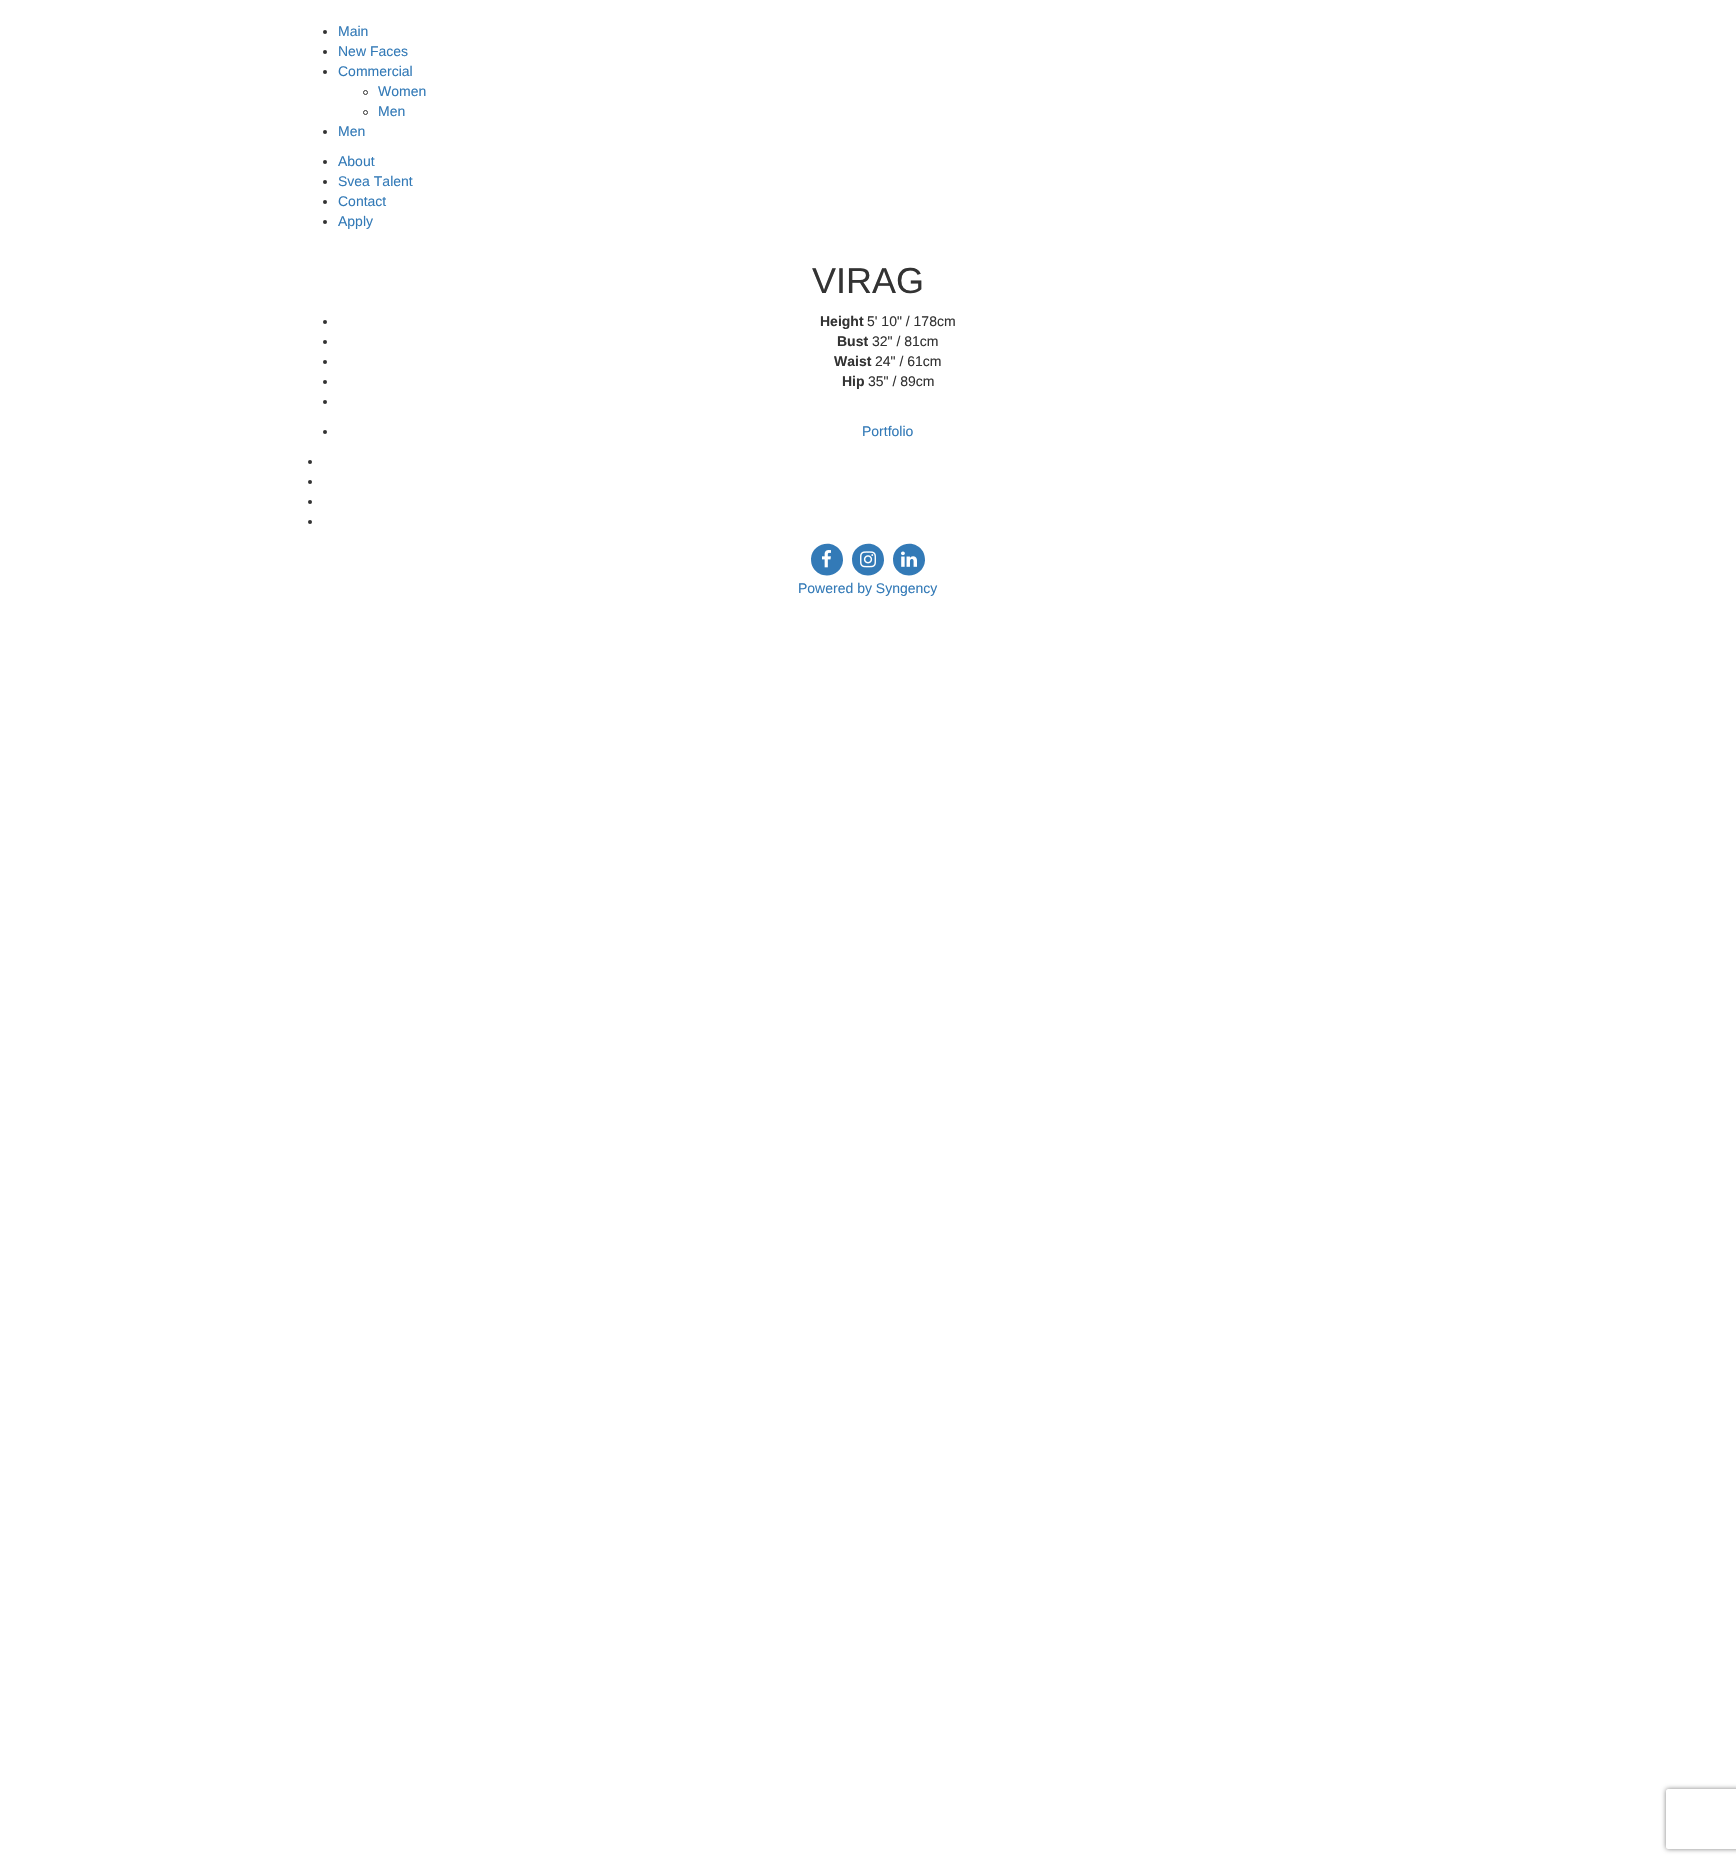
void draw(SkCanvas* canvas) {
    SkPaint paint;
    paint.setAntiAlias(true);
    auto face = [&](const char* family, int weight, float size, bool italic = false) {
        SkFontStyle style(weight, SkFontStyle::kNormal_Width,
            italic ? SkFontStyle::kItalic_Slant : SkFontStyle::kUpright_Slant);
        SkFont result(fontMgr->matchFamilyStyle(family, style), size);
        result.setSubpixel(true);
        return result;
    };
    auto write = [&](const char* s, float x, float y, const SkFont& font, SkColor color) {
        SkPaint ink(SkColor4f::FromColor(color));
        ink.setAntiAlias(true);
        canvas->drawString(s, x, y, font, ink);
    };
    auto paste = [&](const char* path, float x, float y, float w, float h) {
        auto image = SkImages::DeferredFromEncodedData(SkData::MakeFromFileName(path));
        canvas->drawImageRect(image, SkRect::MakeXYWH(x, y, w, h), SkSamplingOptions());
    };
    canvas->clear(SK_ColorWHITE);
    paint.setColor(SkColorSetRGB(51, 51, 51));
    canvas->drawCircle(325, 32, 2, paint);
    auto kFont1 = face("Liberation Sans", 400, 14);
    write("Main", 338, 36, kFont1, SkColorSetRGB(51, 122, 183));
    canvas->drawCircle(325, 52, 2, paint);
    write("New Faces", 338, 56, kFont1, SkColorSetRGB(51, 122, 183));
    canvas->drawCircle(325, 72, 2, paint);
    write("Commercial", 338, 76, kFont1, SkColorSetRGB(51, 122, 183));
    paint.setStyle(SkPaint::kStroke_Style);
    paint.setStrokeWidth(1);
    canvas->drawCircle(365.5f, 92.5f, 2, paint);
    write("Women", 378, 96, kFont1, SkColorSetRGB(51, 122, 183));
    canvas->drawCircle(365.5f, 112.5f, 2, paint);
    write("Men", 378, 116, kFont1, SkColorSetRGB(51, 122, 183));
    paint.setStyle(SkPaint::kFill_Style);
    canvas->drawCircle(325, 132, 2, paint);
    write("Men", 338, 136, kFont1, SkColorSetRGB(51, 122, 183));
    canvas->drawCircle(325, 162, 2, paint);
    write("About", 338, 166, kFont1, SkColorSetRGB(51, 122, 183));
    canvas->drawCircle(325, 182, 2, paint);
    write("Svea Talent", 338, 186, kFont1, SkColorSetRGB(51, 122, 183));
    canvas->drawCircle(325, 202, 2, paint);
    write("Contact", 338, 206, kFont1, SkColorSetRGB(51, 122, 183));
    canvas->drawCircle(325, 222, 2, paint);
    write("Apply", 338, 226, kFont1, SkColorSetRGB(51, 122, 183));
    auto kFont2 = face("Liberation Sans", 400, 36);
    write("VIRAG", 812, 293, kFont2, SkColorSetRGB(51, 51, 51));
    canvas->drawCircle(325, 322, 2, paint);
    auto kFont3 = face("Liberation Sans", 700, 14);
    write("Height", 820, 326, kFont3, SkColorSetRGB(51, 51, 51));
    write("5' 10\" / 178cm", 867, 326, kFont1, SkColorSetRGB(51, 51, 51));
    canvas->drawCircle(325, 342, 2, paint);
    write("Bust", 837, 346, kFont3, SkColorSetRGB(51, 51, 51));
    write("32\" / 81cm", 872, 346, kFont1, SkColorSetRGB(51, 51, 51));
    canvas->drawCircle(325, 362, 2, paint);
    write("Waist", 834, 366, kFont3, SkColorSetRGB(51, 51, 51));
    write("24\" / 61cm", 875, 366, kFont1, SkColorSetRGB(51, 51, 51));
    canvas->drawCircle(325, 382, 2, paint);
    write("Hip", 842, 386, kFont3, SkColorSetRGB(51, 51, 51));
    write("35\" / 89cm", 868, 386, kFont1, SkColorSetRGB(51, 51, 51));
    canvas->drawCircle(325, 402, 2, paint);
    canvas->drawCircle(325, 432, 2, paint);
    write("Portfolio", 862, 436, kFont1, SkColorSetRGB(51, 122, 183));
    canvas->drawCircle(310, 462, 2, paint);
    canvas->drawCircle(310, 482, 2, paint);
    canvas->drawCircle(310, 502, 2, paint);
    canvas->drawCircle(310, 522, 2, paint);
    paint.setColor(SkColorSetRGB(51, 122, 183));
    canvas->drawPath(SkPathBuilder().moveTo(841, 551.5f).cubicTo(842.5f, 554.5f, 843, 557.5f, 843, 560.5f).cubicTo(842, 576.5f, 821, 581, 813, 567.5f).cubicTo(811.5f, 565, 811, 562, 811, 558.5f).cubicTo(812, 543, 833, 538, 841, 551.5f).close().detach(), paint);
    paste("pic1.png", 822, 550, 9, 18);
    canvas->drawPath(SkPathBuilder().moveTo(882, 551.5f).cubicTo(883.5f, 554.5f, 884, 557.5f, 884, 560.5f).cubicTo(883, 576.5f, 862, 581, 854, 567.5f).cubicTo(852.5f, 565, 852, 562, 852, 558.5f).cubicTo(853, 543, 874, 538, 882, 551.5f).close().detach(), paint);
    paste("pic2.png", 860, 551, 16, 17);
    canvas->drawPath(SkPathBuilder().moveTo(923, 551.5f).cubicTo(924.5f, 554.5f, 925, 557.5f, 925, 560.5f).cubicTo(924, 576.5f, 903, 581, 895, 567.5f).cubicTo(893.5f, 565, 893, 562, 893, 558.5f).cubicTo(894, 543, 915, 538, 923, 551.5f).close().detach(), paint);
    paste("pic3.png", 901, 551, 16, 16);
    write("Powered by Syngency", 798, 593, kFont1, SkColorSetRGB(51, 122, 183));
    canvas->save();
    canvas->clipPath(SkPathBuilder(SkPathFillType::kEvenOdd).moveTo(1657, 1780).lineTo(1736, 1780).lineTo(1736, 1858).lineTo(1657, 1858).close().moveTo(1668, 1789).lineTo(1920, 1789).cubicTo(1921, 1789, 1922, 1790, 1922, 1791).lineTo(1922, 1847).cubicTo(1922, 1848, 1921, 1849, 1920, 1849).lineTo(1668, 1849).cubicTo(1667, 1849, 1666, 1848, 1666, 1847).lineTo(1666, 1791).cubicTo(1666, 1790, 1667, 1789, 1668, 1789).close().detach(), true);
    paint.setColor(SkColorSetRGB(128, 128, 128));
    paint.setMaskFilter(SkMaskFilter::MakeBlur(kNormal_SkBlurStyle, 2.5f));
    canvas->drawRoundRect(SkRect::MakeXYWH(1666, 1789, 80, 60), 2, 2, paint);
    paint.setMaskFilter(nullptr);
    canvas->restore();
}
